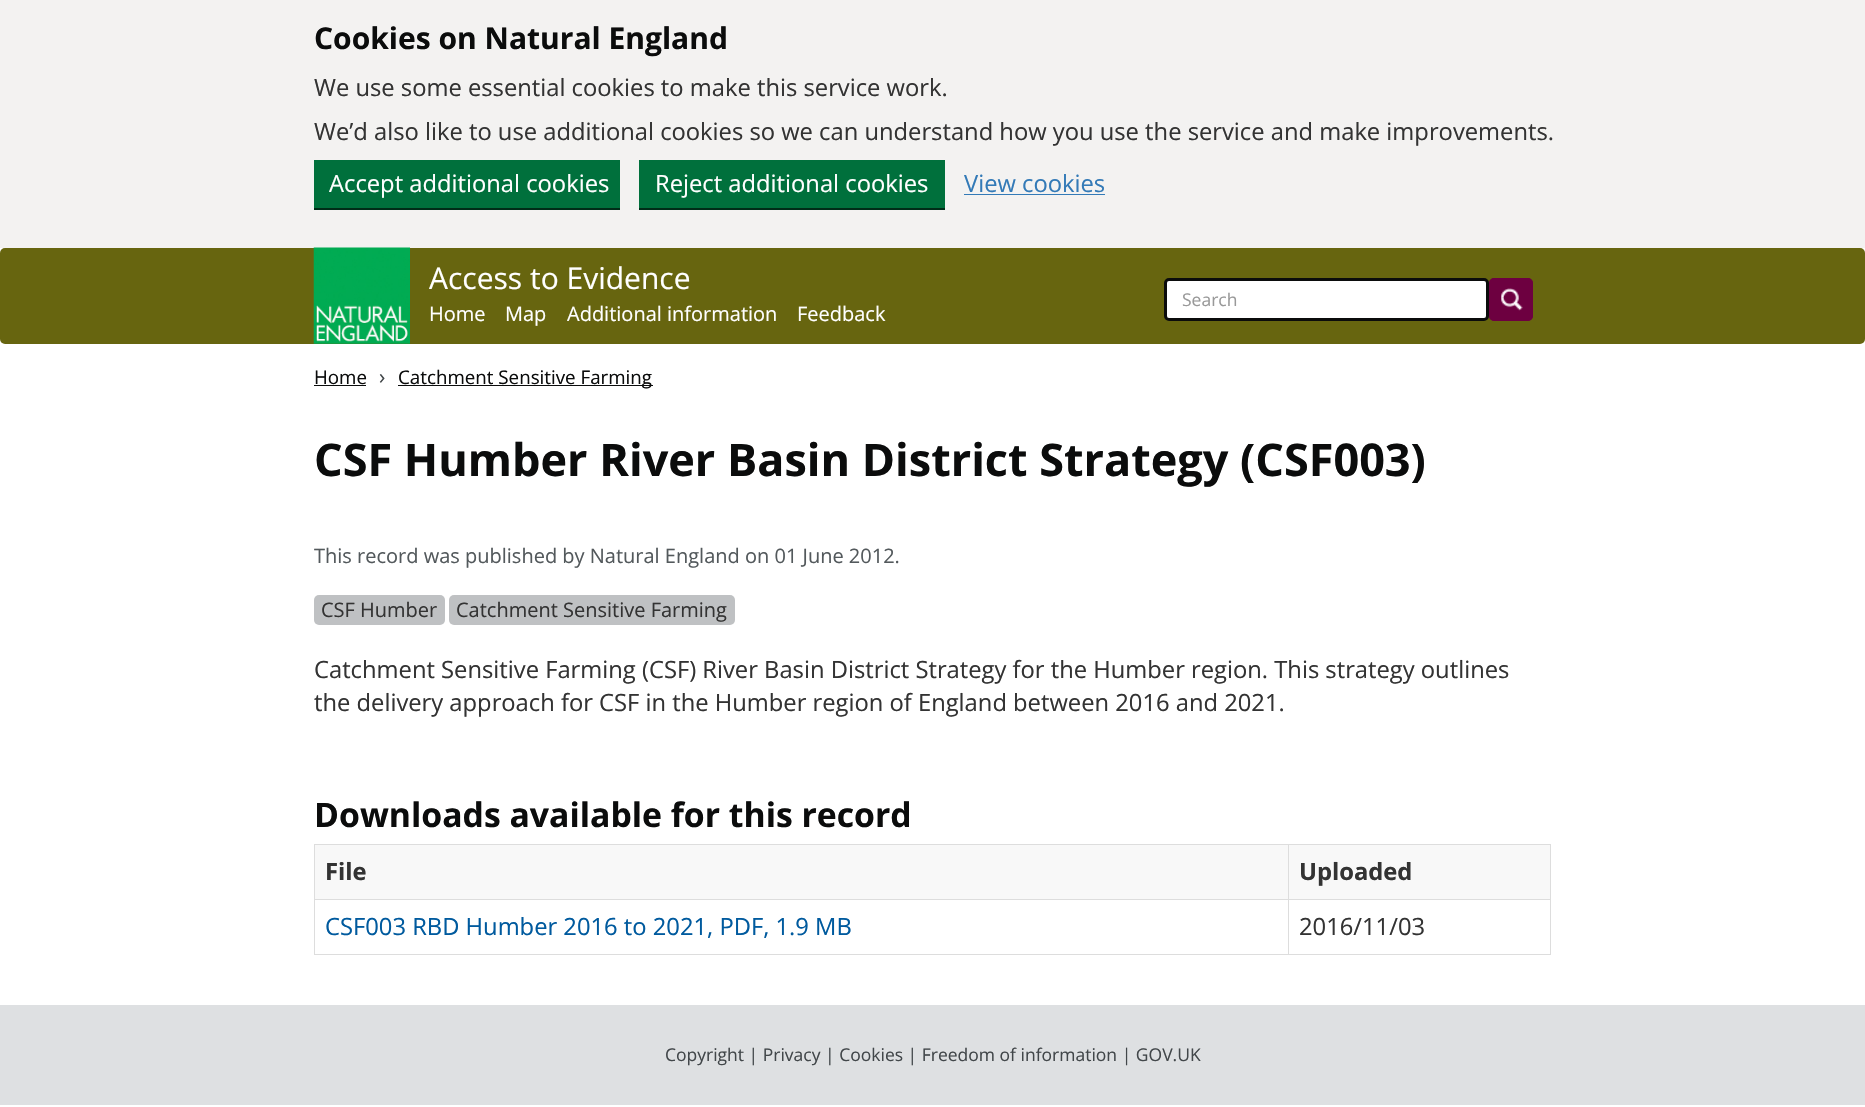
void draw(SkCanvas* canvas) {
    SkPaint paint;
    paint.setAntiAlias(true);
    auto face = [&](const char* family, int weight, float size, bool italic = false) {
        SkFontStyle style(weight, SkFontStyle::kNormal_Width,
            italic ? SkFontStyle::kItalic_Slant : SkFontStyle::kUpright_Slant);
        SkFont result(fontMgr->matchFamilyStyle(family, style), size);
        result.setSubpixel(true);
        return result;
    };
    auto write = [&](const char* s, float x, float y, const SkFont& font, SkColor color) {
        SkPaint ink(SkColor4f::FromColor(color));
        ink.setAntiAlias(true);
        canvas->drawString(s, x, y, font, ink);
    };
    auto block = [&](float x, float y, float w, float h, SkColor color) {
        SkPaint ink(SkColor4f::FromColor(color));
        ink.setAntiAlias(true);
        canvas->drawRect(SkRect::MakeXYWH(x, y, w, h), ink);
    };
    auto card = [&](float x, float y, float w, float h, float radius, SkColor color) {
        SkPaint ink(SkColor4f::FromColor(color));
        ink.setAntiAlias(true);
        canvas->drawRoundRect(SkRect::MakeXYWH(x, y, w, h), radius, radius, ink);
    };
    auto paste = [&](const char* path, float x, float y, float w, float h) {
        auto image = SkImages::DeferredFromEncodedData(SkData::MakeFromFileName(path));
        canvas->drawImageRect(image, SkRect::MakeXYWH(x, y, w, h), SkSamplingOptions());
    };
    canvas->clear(SK_ColorWHITE);
    block(0, 0, 1865, 248, SkColorSetRGB(243, 242, 241));
    auto kFont1 = face("Open Sans", 700, 30);
    write("Cookies on Natural England", 314, 49, kFont1, SkColorSetRGB(11, 12, 12));
    auto kFont2 = face("Open Sans", 400, 23.75f);
    write("We use some essential cookies to make this service work.", 314, 96, kFont2, SkColorSetRGB(51, 51, 51));
    write("We’d also like to use additional cookies so we can understand how you use the service and make improvements.", 314, 140, kFont2, SkColorSetRGB(51, 51, 51));
    block(314, 208, 306, 2, SkColorSetRGB(0, 45, 24));
    block(314, 160, 306, 48, SkColorSetRGB(0, 112, 60));
    write("Accept additional cookies", 329, 192, kFont2, SK_ColorWHITE);
    block(639, 208, 306, 2, SkColorSetRGB(0, 45, 24));
    block(639, 160, 306, 48, SkColorSetRGB(0, 112, 60));
    write("Reject additional cookies", 655, 192, kFont2, SK_ColorWHITE);
    write("View cookies", 964, 192, kFont2, SkColorSetRGB(51, 122, 183));
    block(964, 194, 141, 1, SkColorSetRGB(51, 122, 183));
    card(0, 248, 1865, 96, 5, SkColorSetRGB(103, 101, 15));
    paste("pic1.png", 313, 247, 97, 97);
    auto kFont3 = face("Open Sans", 400, 30);
    write("Access to Evidence", 429, 289, kFont3, SK_ColorWHITE);
    auto kFont4 = face("Open Sans", 400, 20);
    write("Home", 429, 321, kFont4, SK_ColorWHITE);
    write("Map", 505, 321, kFont4, SK_ColorWHITE);
    write("Additional information", 567, 321, kFont4, SK_ColorWHITE);
    write("Feedback", 797, 321, kFont4, SK_ColorWHITE);
    paint.setColor(SK_ColorWHITE);
    canvas->drawRoundRect(SkRect::MakeXYWH(1165.5f, 279.5f, 322, 40), 3.5f, 3.5f, paint);
    paint.setStyle(SkPaint::kStroke_Style);
    paint.setStrokeWidth(3);
    paint.setColor(SkColorSetRGB(11, 12, 12));
    canvas->drawRoundRect(SkRect::MakeXYWH(1165.5f, 279.5f, 322, 40), 3.5f, 3.5f, paint);
    auto kFont5 = face("Open Sans", 400, 17.5f);
    write("Search", 1182, 306, kFont5, SkColorSetRGB(153, 153, 153));
    card(1489, 278, 44, 43, 5, SkColorSetRGB(109, 0, 64));
    paste("pic2.png", 1501, 288, 22, 23);
    paint.setStrokeWidth(1);
    paint.setColor(SkColorSetRGB(109, 0, 64));
    canvas->drawRoundRect(SkRect::MakeXYWH(1489.5f, 278.5f, 43, 42), 4.5f, 4.5f, paint);
    auto kFont6 = face("Open Sans", 400, 18.75f);
    write("Home", 314, 384, kFont6, SkColorSetRGB(11, 12, 12));
    block(314, 385, 52, 1, SkColorSetRGB(11, 12, 12));
    auto kFont7 = face("Open Sans", 400, 21);
    write("›", 379, 384, kFont7, SkColorSetRGB(66, 71, 74));
    block(398, 385, 255, 1, SkColorSetRGB(11, 12, 12));
    write("Catchment Sensitive Farming", 398, 384, kFont6, SkColorSetRGB(11, 12, 12));
    auto kFont8 = face("Open Sans", 700, 45);
    write("CSF Humber River Basin District Strategy (CSF003)", 314, 476, kFont8, SkColorSetRGB(11, 12, 12));
    write("This record was published by Natural England on 01 June 2012.", 314, 563, kFont4, SkColorSetRGB(83, 89, 92));
    card(314, 595, 131, 30, 5, SkColorSetRGB(191, 193, 195));
    write("CSF Humber", 321, 617, kFont4, SkColorSetRGB(51, 51, 51));
    card(449, 595, 286, 30, 5, SkColorSetRGB(191, 193, 195));
    write("Catchment Sensitive Farming", 456, 617, kFont4, SkColorSetRGB(51, 51, 51));
    write("Catchment Sensitive Farming (CSF) River Basin District Strategy for the Humber region. This strategy outlines", 314, 678, kFont2, SkColorSetRGB(51, 51, 51));
    write("the delivery approach for CSF in the Humber region of England between 2016 and 2021.", 314, 711, kFont2, SkColorSetRGB(51, 51, 51));
    auto kFont9 = face("Open Sans", 700, 33.75f);
    write("Downloads available for this record", 314, 827, kFont9, SkColorSetRGB(11, 12, 12));
    block(314, 844, 1237, 1, SkColorSetRGB(221, 221, 221));
    block(1550, 844, 1, 111, SkColorSetRGB(221, 221, 221));
    block(314, 954, 1237, 1, SkColorSetRGB(221, 221, 221));
    block(314, 844, 1, 111, SkColorSetRGB(221, 221, 221));
    block(315, 845, 973, 54, SkColorSetRGB(248, 248, 248));
    auto kFont10 = face("Open Sans", 700, 23.75f);
    write("File", 325, 880, kFont10, SkColorSetRGB(51, 51, 51));
    block(1289, 845, 261, 54, SkColorSetRGB(248, 248, 248));
    block(1288, 899, 263, 1, SkColorSetRGB(221, 221, 221));
    block(1288, 899, 1, 56, SkColorSetRGB(221, 221, 221));
    block(314, 899, 975, 1, SkColorSetRGB(221, 221, 221));
    block(1288, 844, 1, 56, SkColorSetRGB(221, 221, 221));
    write("Uploaded", 1299, 880, kFont10, SkColorSetRGB(51, 51, 51));
    write("CSF003 RBD Humber 2016 to 2021, PDF, 1.9 MB", 325, 935, kFont2, SkColorSetRGB(0, 90, 158));
    write("2016/11/03", 1299, 935, kFont2, SkColorSetRGB(51, 51, 51));
    block(0, 1005, 1865, 100, SkColorSetRGB(222, 224, 226));
    write("Copyright | Privacy | Cookies | Freedom of information | GOV.UK", 665, 1061, kFont5, SkColorSetRGB(66, 71, 74));
}
